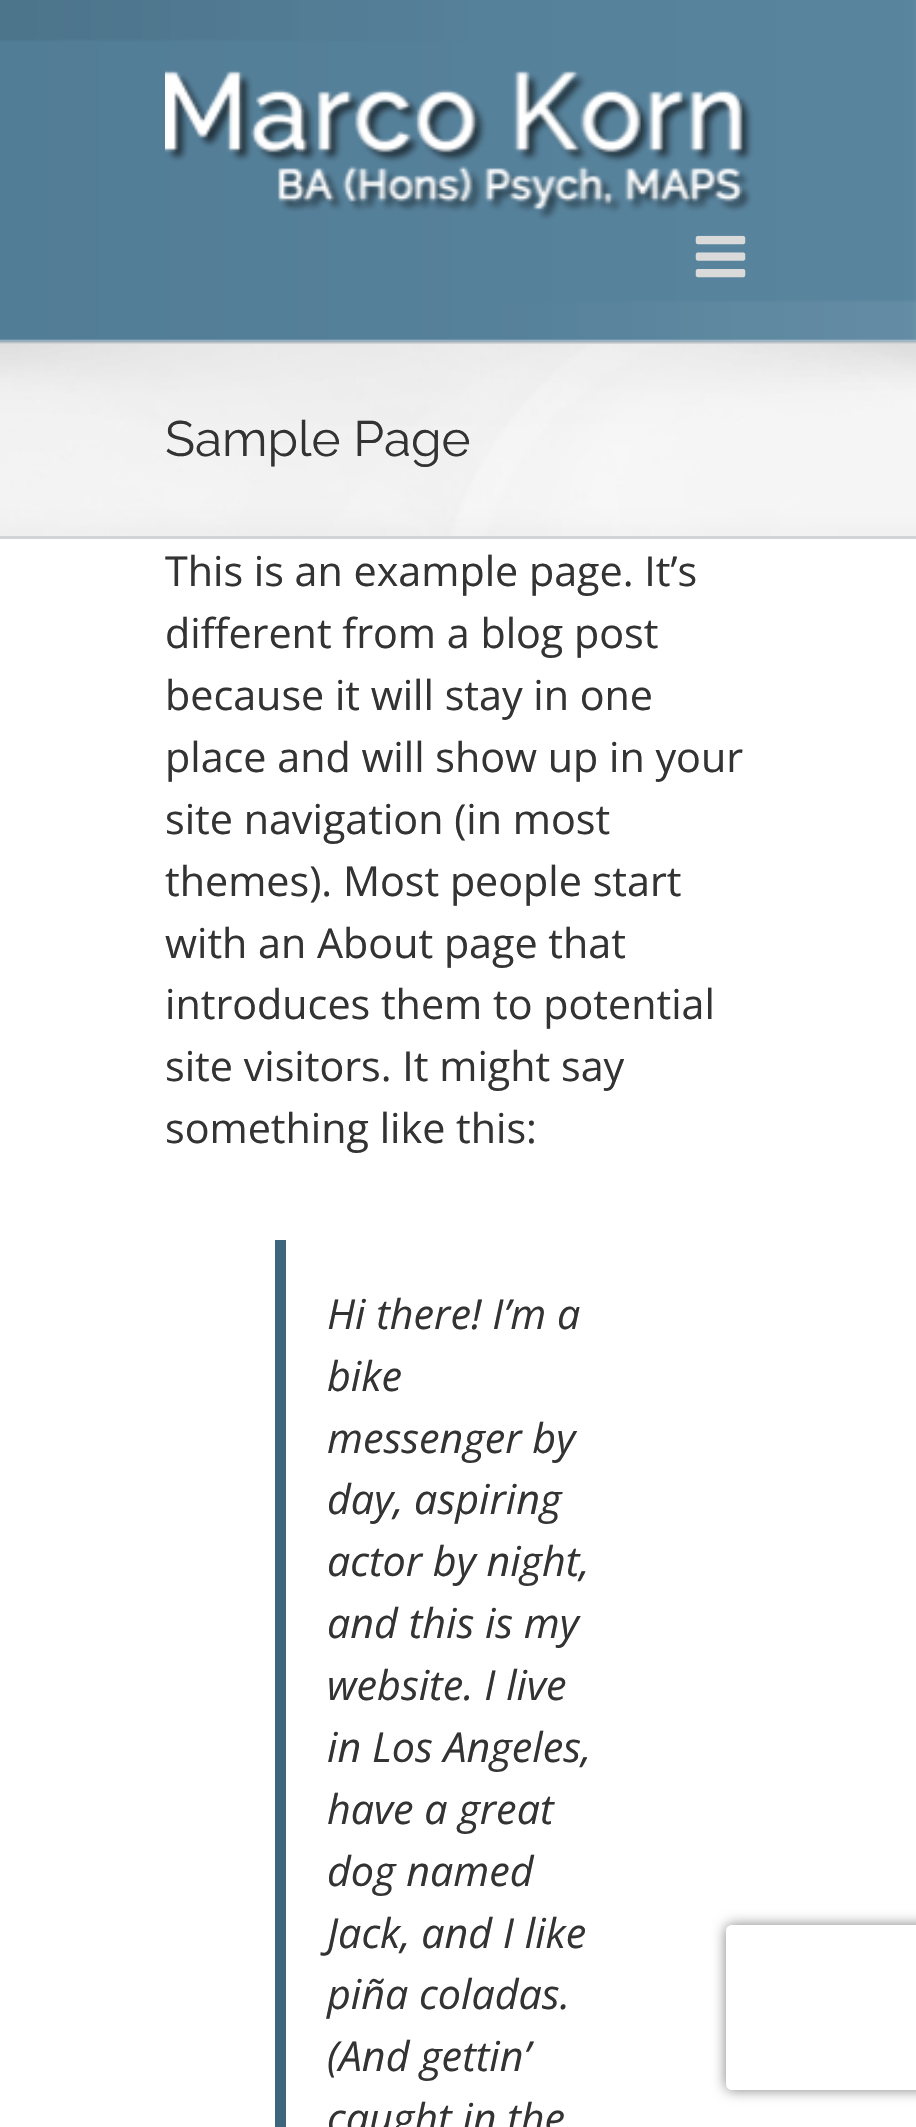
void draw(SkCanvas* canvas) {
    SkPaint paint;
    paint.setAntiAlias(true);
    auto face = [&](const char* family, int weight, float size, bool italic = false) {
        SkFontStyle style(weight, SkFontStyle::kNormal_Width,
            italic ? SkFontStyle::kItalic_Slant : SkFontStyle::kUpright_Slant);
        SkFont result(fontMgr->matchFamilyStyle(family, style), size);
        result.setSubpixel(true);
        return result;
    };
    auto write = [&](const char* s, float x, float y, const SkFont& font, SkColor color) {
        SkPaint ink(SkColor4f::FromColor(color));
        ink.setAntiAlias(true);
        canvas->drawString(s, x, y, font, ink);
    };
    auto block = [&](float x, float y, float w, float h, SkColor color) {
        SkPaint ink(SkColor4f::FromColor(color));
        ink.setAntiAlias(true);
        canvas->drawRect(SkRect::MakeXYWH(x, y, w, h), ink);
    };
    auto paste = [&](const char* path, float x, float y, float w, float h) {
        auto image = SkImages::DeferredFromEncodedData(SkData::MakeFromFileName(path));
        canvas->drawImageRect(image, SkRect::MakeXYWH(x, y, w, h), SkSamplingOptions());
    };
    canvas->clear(SK_ColorWHITE);
    block(0, 341, 916, 3, SkColorSetRGB(210, 211, 212));
    paste("pic1.png", 0, 0, 916, 343);
    paste("pic2.png", 165, 70, 589, 150);
    paste("pic3.png", 695, 235, 51, 43);
    block(0, 344, 916, 192, SkColorSetRGB(246, 246, 246));
    paste("pic4.png", 0, 344, 916, 192);
    block(0, 536, 916, 3, SkColorSetRGB(210, 211, 212));
    auto kFont1 = face("Raleway", 400, 49.5f);
    write("Sample Page", 165, 456, kFont1, SkColorSetRGB(51, 51, 51));
    auto kFont2 = face("Open Sans", 400, 41.25f);
    write("This is an example page. It’s", 165, 586, kFont2, SkColorSetRGB(51, 51, 51));
    write("different from a blog post", 165, 648, kFont2, SkColorSetRGB(51, 51, 51));
    write("because it will stay in one", 165, 710, kFont2, SkColorSetRGB(51, 51, 51));
    write("place and will show up in your", 165, 772, kFont2, SkColorSetRGB(51, 51, 51));
    write("site navigation (in most", 165, 834, kFont2, SkColorSetRGB(51, 51, 51));
    write("themes). Most people start", 165, 896, kFont2, SkColorSetRGB(51, 51, 51));
    write("with an About page that", 165, 958, kFont2, SkColorSetRGB(51, 51, 51));
    write("introduces them to potential", 165, 1019, kFont2, SkColorSetRGB(51, 51, 51));
    write("site visitors. It might say", 165, 1081, kFont2, SkColorSetRGB(51, 51, 51));
    write("something like this:", 165, 1143, kFont2, SkColorSetRGB(51, 51, 51));
    block(275, 1240, 11, 887, SkColorSetRGB(61, 101, 124));
    auto kFont3 = face("Open Sans", 400, 41.25f, true);
    write("Hi there! I’m a", 327, 1329, kFont3, SkColorSetRGB(51, 51, 51));
    write("bike", 327, 1391, kFont3, SkColorSetRGB(51, 51, 51));
    write("messenger by", 327, 1453, kFont3, SkColorSetRGB(51, 51, 51));
    write("day, aspiring", 327, 1514, kFont3, SkColorSetRGB(51, 51, 51));
    write("actor by night,", 327, 1576, kFont3, SkColorSetRGB(51, 51, 51));
    write("and this is my", 327, 1638, kFont3, SkColorSetRGB(51, 51, 51));
    write("website. I live", 327, 1700, kFont3, SkColorSetRGB(51, 51, 51));
    write("in Los Angeles,", 327, 1762, kFont3, SkColorSetRGB(51, 51, 51));
    write("have a great", 327, 1824, kFont3, SkColorSetRGB(51, 51, 51));
    write("dog named", 327, 1886, kFont3, SkColorSetRGB(51, 51, 51));
    write("Jack, and I like", 327, 1948, kFont3, SkColorSetRGB(51, 51, 51));
    write("piña coladas.", 327, 2009, kFont3, SkColorSetRGB(51, 51, 51));
    write("(And gettin’", 327, 2071, kFont3, SkColorSetRGB(51, 51, 51));
    write("caught in the", 327, 2133, kFont3, SkColorSetRGB(51, 51, 51));
    canvas->save();
    canvas->clipPath(SkPathBuilder(SkPathFillType::kEvenOdd).moveTo(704, 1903).lineTo(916, 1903).lineTo(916, 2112).lineTo(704, 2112).close().moveTo(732, 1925).lineTo(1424, 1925).cubicTo(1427.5f, 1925, 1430, 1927.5f, 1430, 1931).lineTo(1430, 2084).cubicTo(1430, 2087.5f, 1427.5f, 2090, 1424, 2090).lineTo(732, 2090).cubicTo(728.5f, 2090, 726, 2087.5f, 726, 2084).lineTo(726, 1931).cubicTo(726, 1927.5f, 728.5f, 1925, 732, 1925).close().detach(), true);
    paint.setColor(SkColorSetRGB(128, 128, 128));
    paint.setMaskFilter(SkMaskFilter::MakeBlur(kNormal_SkBlurStyle, 7));
    canvas->drawRoundRect(SkRect::MakeXYWH(726, 1925, 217, 165), 6, 6, paint);
    paint.setMaskFilter(nullptr);
    canvas->restore();
}
